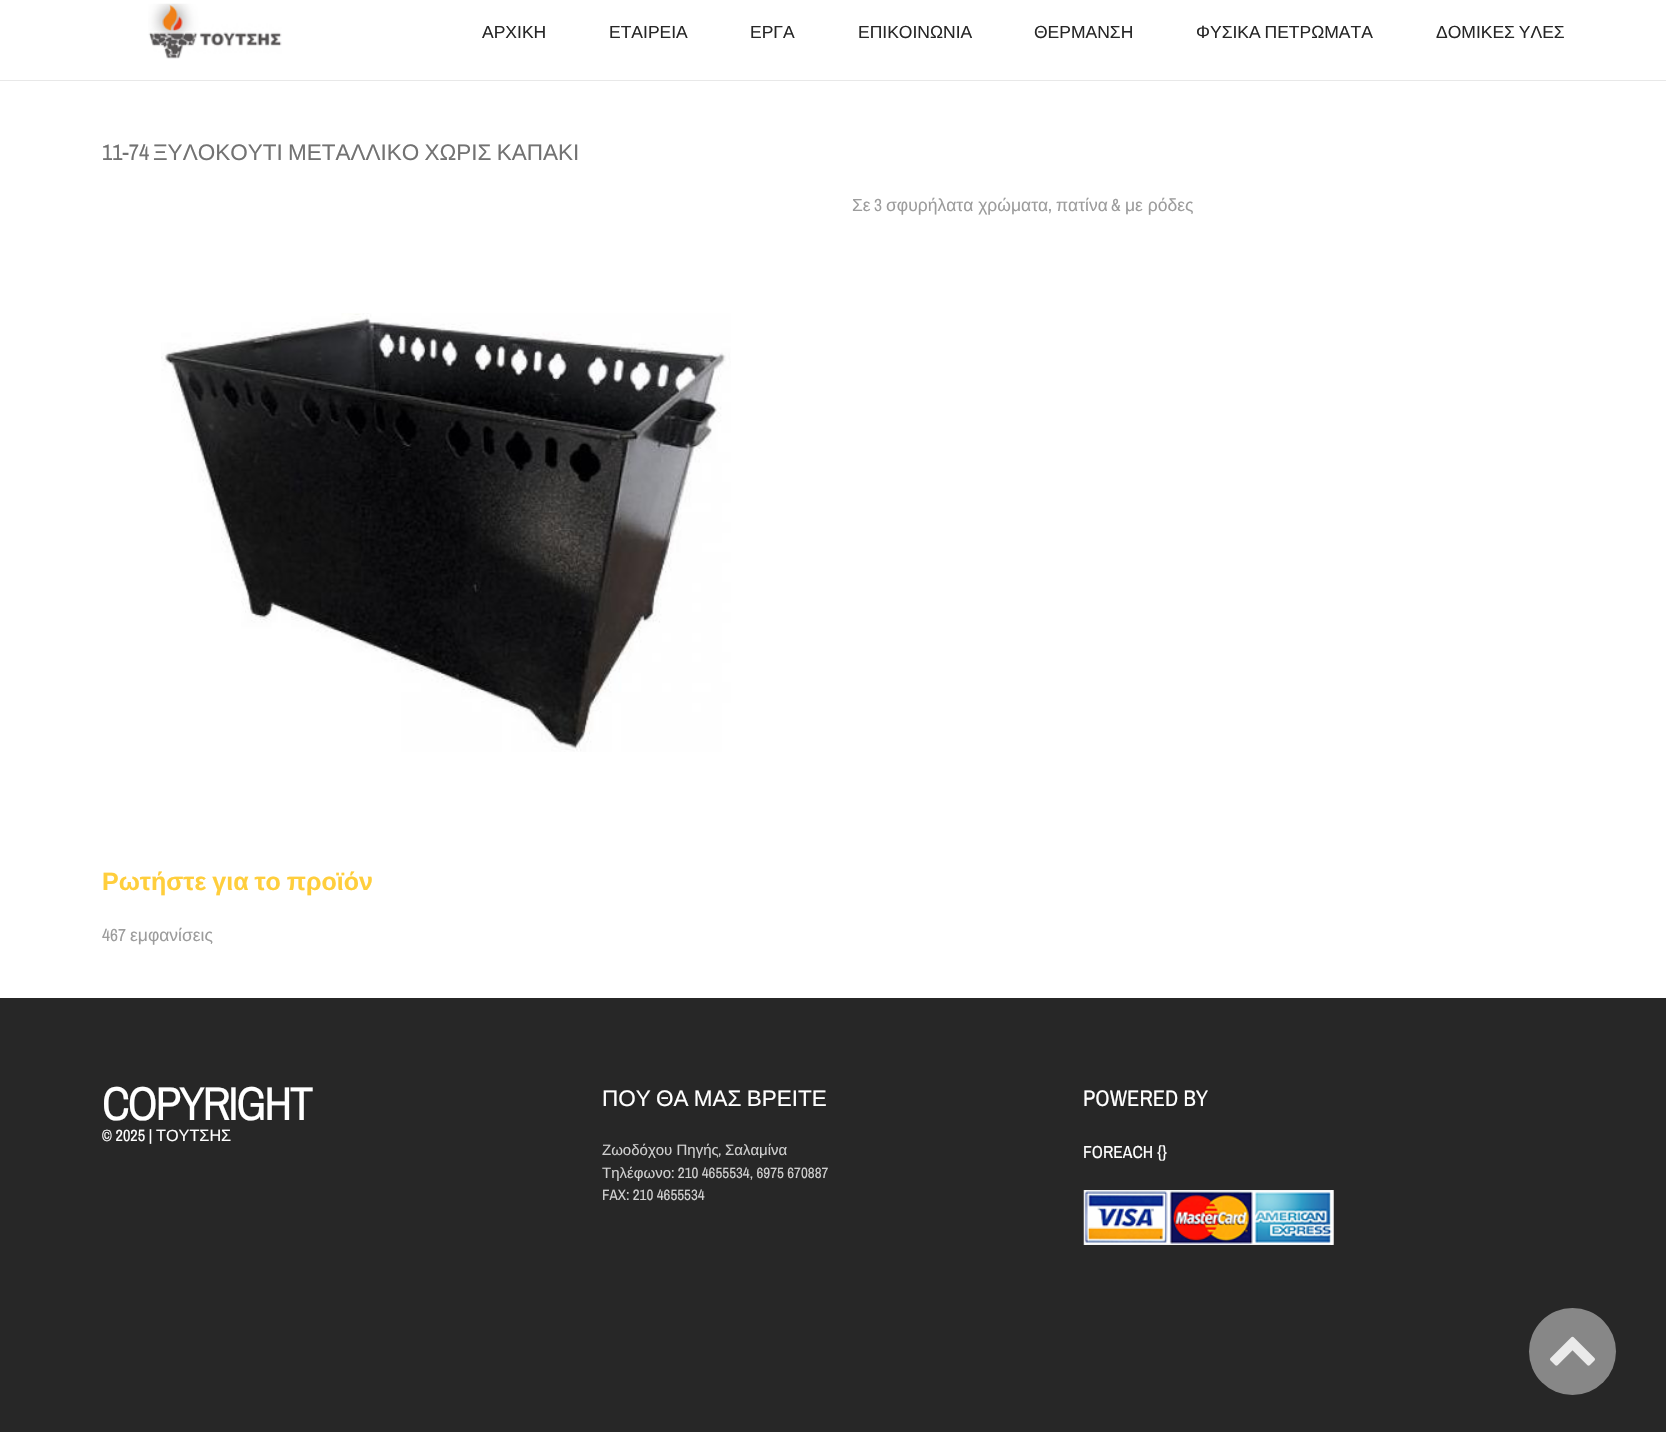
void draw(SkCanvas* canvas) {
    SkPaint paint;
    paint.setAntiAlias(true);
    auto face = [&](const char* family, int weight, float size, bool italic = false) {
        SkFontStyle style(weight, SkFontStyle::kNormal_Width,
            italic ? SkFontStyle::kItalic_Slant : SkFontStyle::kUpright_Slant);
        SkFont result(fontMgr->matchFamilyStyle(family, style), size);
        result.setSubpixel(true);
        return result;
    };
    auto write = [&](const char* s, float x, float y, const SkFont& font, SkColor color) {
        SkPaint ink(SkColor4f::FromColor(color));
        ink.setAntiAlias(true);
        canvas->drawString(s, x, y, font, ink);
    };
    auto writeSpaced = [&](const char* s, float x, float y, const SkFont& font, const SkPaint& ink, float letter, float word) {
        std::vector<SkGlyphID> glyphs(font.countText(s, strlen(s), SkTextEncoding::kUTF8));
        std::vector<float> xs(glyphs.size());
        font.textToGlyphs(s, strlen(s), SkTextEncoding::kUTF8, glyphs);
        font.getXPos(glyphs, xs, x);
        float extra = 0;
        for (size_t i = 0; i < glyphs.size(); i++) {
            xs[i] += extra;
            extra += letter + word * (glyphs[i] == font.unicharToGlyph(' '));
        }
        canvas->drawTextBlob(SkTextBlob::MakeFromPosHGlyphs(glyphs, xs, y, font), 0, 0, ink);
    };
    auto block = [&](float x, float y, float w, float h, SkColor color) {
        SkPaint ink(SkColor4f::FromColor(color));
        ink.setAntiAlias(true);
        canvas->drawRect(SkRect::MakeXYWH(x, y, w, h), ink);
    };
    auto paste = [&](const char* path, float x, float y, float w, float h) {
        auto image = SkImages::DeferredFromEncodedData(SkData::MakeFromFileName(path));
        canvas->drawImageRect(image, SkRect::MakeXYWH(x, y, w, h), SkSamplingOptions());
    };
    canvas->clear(SkColorSetRGB(39, 39, 39));
    block(0, 0, 1666, 80, SK_ColorWHITE);
    block(0, 80, 1666, 1, SkColorSetRGB(232, 232, 232));
    paste("pic1.png", 148, 3, 134, 56);
    auto kFont1 = face("Liberation Sans", 400, 17.5f);
    write("ΑΡΧΙΚΗ", 482, 38, kFont1, SkColorSetRGB(39, 39, 39));
    write("ΕΤΑΙΡΕΙΑ", 609, 38, kFont1, SkColorSetRGB(39, 39, 39));
    write("ΕΡΓΑ", 750, 38, kFont1, SkColorSetRGB(39, 39, 39));
    write("ΕΠΙΚΟΙΝΩΝΙΑ", 858, 38, kFont1, SkColorSetRGB(39, 39, 39));
    write("ΘΕΡΜΑΝΣΗ", 1034, 38, kFont1, SkColorSetRGB(39, 39, 39));
    paint.setColor(SkColorSetRGB(39, 39, 39));
    writeSpaced("ΦΥΣΙΚΑ ΠΕΤΡΩΜΑΤΑ", 1196, 38, kFont1, paint, 0, -1);
    writeSpaced("ΔΟΜΙΚΕΣ ΥΛΕΣ", 1436, 38, kFont1, paint, 0, -1);
    block(0, 81, 1666, 917, SK_ColorWHITE);
    auto kFont2 = face("Archivo Narrow", 400, 22.5f);
    write("11-74", 102, 160, kFont2, SkColorSetRGB(114, 114, 114));
    auto kFont3 = face("Liberation Sans", 400, 22.5f);
    paint.setColor(SkColorSetRGB(114, 114, 114));
    writeSpaced("ΞΥΛΟΚΟΥΤΙ ΜΕΤΑΛΛΙΚΟ ΧΩΡΙΣ ΚΑΠΑΚΙ", 153, 160, kFont3, paint, 0, -1);
    write("Σε", 852, 211, kFont1, SkColorSetRGB(156, 156, 156));
    auto kFont4 = face("Archivo Narrow", 400, 17.5f);
    write("3", 874, 211, kFont4, SkColorSetRGB(156, 156, 156));
    write("σφυρήλατα χρώματα", 886, 211, kFont1, SkColorSetRGB(156, 156, 156));
    write(",", 1048, 211, kFont4, SkColorSetRGB(156, 156, 156));
    write("πατίνα", 1056, 211, kFont1, SkColorSetRGB(156, 156, 156));
    write("&", 1111, 211, kFont4, SkColorSetRGB(156, 156, 156));
    write("με ρόδες", 1125, 211, kFont1, SkColorSetRGB(156, 156, 156));
    paste("pic2.png", 161, 313, 570, 439);
    auto kFont5 = face("Liberation Sans", 700, 25);
    paint.setColor(SkColorSetRGB(255, 206, 60));
    writeSpaced("Ρωτήστε για το προϊόν", 102, 890, kFont5, paint, 0, -1);
    write("467", 102, 941, kFont4, SkColorSetRGB(156, 156, 156));
    write("εμφανίσεις", 130, 941, kFont1, SkColorSetRGB(156, 156, 156));
    auto kFont6 = face("Archivo Narrow", 400, 47.5f);
    paint.setColor(SK_ColorWHITE);
    writeSpaced("COPYRIGHT", 102, 1120, kFont6, paint, -2.5f, 0);
    auto kFont7 = face("Archivo Narrow", 400, 16.25f);
    write("© 2025 |", 102, 1141, kFont7, SK_ColorWHITE);
    auto kFont8 = face("Liberation Sans", 400, 16.25f);
    write("ΤΟΥΤΣΗΣ", 156, 1141, kFont8, SK_ColorWHITE);
    writeSpaced("ΠΟΥ ΘΑ ΜΑΣ ΒΡΕΙΤΕ", 602, 1106, kFont3, paint, 0, -1);
    auto kFont9 = face("Liberation Sans", 400, 15);
    write("Ζωοδόχου Πηγής", 602, 1155, kFont9, SkColorSetRGB(207, 207, 207));
    auto kFont10 = face("Archivo Narrow", 400, 15);
    write(",", 718, 1155, kFont10, SkColorSetRGB(207, 207, 207));
    write("Σαλαμίνα", 725, 1155, kFont9, SkColorSetRGB(207, 207, 207));
    write("Τηλέφωνο", 602, 1178, kFont9, SkColorSetRGB(207, 207, 207));
    write(": 210 4655534, 6975 670887", 671, 1178, kFont10, SkColorSetRGB(207, 207, 207));
    write("FAX: 210 4655534", 602, 1200, kFont10, SkColorSetRGB(207, 207, 207));
    write("POWERED BY", 1083, 1106, kFont2, SK_ColorWHITE);
    write("FOREACH {}", 1083, 1158, kFont4, SK_ColorWHITE);
    paste("pic3.png", 1083, 1190, 251, 55);
    paint.setColor(SkColorSetRGB(135, 135, 135));
    canvas->drawCircle(1572.5f, 1351.5f, 43.5f, paint);
    paste("pic4.png", 1550, 1336, 45, 30);
}
